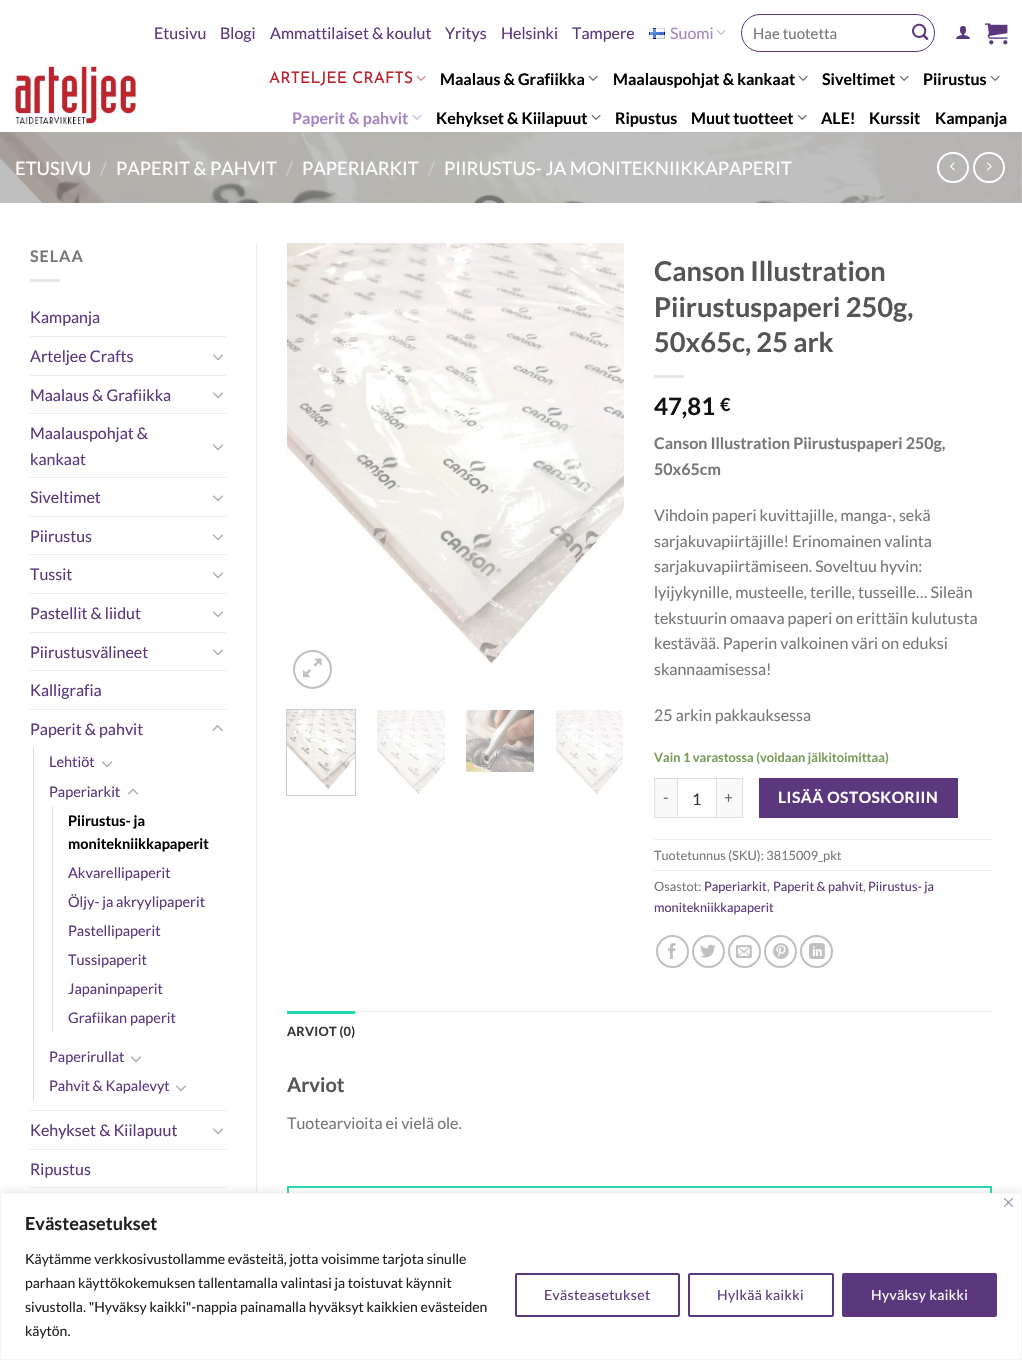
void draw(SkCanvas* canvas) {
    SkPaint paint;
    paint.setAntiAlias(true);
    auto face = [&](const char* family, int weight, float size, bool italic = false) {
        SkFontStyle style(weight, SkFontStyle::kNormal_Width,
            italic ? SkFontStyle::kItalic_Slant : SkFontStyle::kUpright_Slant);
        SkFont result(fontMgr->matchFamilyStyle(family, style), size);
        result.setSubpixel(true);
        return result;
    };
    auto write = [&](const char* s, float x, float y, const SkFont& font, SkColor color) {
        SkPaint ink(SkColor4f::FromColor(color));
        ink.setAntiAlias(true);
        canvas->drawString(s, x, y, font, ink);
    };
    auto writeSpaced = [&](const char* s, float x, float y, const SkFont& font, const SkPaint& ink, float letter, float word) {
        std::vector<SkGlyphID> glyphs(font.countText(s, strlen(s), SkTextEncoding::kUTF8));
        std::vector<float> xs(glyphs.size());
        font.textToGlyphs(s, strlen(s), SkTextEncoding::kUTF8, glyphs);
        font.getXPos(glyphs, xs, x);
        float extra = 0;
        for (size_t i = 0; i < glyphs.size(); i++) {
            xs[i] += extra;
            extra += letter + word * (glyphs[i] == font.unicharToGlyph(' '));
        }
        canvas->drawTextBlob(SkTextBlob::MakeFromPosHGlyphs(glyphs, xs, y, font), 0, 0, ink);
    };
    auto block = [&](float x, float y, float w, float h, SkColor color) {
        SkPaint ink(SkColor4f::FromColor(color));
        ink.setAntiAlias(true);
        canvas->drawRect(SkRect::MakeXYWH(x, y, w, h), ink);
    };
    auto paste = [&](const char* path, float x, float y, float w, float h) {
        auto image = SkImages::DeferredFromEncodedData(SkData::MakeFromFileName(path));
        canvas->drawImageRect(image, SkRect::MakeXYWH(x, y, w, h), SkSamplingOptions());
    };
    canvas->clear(SK_ColorWHITE);
    auto kFont1 = face("Lato", 400, 16);
    write("Etusivu", 154, 39, kFont1, SkColorSetRGB(91, 56, 126));
    write("Blogi", 220, 39, kFont1, SkColorSetRGB(91, 56, 126));
    write("Ammattilaiset & koulut", 270, 39, kFont1, SkColorSetRGB(91, 56, 126));
    write("Yritys", 445, 39, kFont1, SkColorSetRGB(91, 56, 126));
    write("Helsinki", 501, 39, kFont1, SkColorSetRGB(91, 56, 126));
    write("Tampere", 572, 39, kFont1, SkColorSetRGB(91, 56, 126));
    paste("pic1.png", 649, 28, 16, 11);
    write("Suomi", 670, 39, kFont1, SkColorSetRGB(165, 134, 195));
    paste("pic2.png", 716, 29, 10, 6);
    paint.setStyle(SkPaint::kStroke_Style);
    paint.setStrokeWidth(1);
    paint.setColor(SkColorSetRGB(91, 56, 126));
    canvas->drawRoundRect(SkRect::MakeXYWH(741.5f, 14.5f, 193, 37), 18.5f, 18.5f, paint);
    auto kFont2 = face("Lato", 400, 15);
    write("Hae tuotetta", 753, 39, kFont2, SkColorSetRGB(119, 119, 119));
    paste("pic3.png", 912, 23, 17, 17);
    paste("pic4.png", 956, 26, 14, 13);
    paste("pic5.png", 985, 23, 23, 22);
    paste("pic6.png", 15, 66, 121, 59);
    auto kFont3 = face("Josefin Sans", 400, 16);
    write("ARTELJEE CRAFTS", 269, 83, kFont3, SkColorSetRGB(188, 36, 44));
    paste("pic7.png", 416, 75, 10, 6);
    auto kFont4 = face("Lato", 700, 16);
    write("Maalaus & Grafiikka", 440, 85, kFont4, SK_ColorBLACK);
    paste("pic8.png", 588, 75, 10, 6);
    write("Maalauspohjat & kankaat", 613, 85, kFont4, SK_ColorBLACK);
    paste("pic8.png", 798, 75, 10, 6);
    write("Siveltimet", 822, 85, kFont4, SK_ColorBLACK);
    paste("pic8.png", 899, 75, 10, 6);
    write("Piirustus", 923, 85, kFont4, SK_ColorBLACK);
    paste("pic8.png", 990, 75, 10, 6);
    write("Paperit & pahvit", 292, 124, kFont4, SkColorSetRGB(165, 134, 195));
    paste("pic2.png", 412, 114, 10, 6);
    write("Kehykset & Kiilapuut", 436, 124, kFont4, SK_ColorBLACK);
    paste("pic8.png", 591, 114, 10, 6);
    write("Ripustus", 615, 124, kFont4, SK_ColorBLACK);
    write("Muut tuotteet", 691, 124, kFont4, SK_ColorBLACK);
    paste("pic8.png", 797, 114, 10, 6);
    write("ALE!", 821, 124, kFont4, SK_ColorBLACK);
    write("Kurssit", 869, 124, kFont4, SK_ColorBLACK);
    write("Kampanja", 935, 124, kFont4, SK_ColorBLACK);
    paste("pic9.png", 0, 132, 1022, 71);
    auto kFont5 = face("Lato", 400, 18.4f);
    write("ETUSIVU", 15, 175, kFont5, SK_ColorWHITE);
    write("/", 100, 175, kFont5, SkColorSetRGB(206, 204, 202));
    write("PAPERIT & PAHVIT", 116, 175, kFont5, SK_ColorWHITE);
    write("/", 286, 175, kFont5, SkColorSetRGB(206, 204, 202));
    write("PAPERIARKIT", 302, 175, kFont5, SK_ColorWHITE);
    write("/", 428, 175, kFont5, SkColorSetRGB(206, 204, 202));
    write("PIIRUSTUS- JA MONITEKNIIKKAPAPERIT", 444, 175, kFont5, SK_ColorWHITE);
    paint.setStrokeWidth(2);
    paint.setColor(SK_ColorWHITE);
    canvas->drawRoundRect(SkRect::MakeXYWH(938, 153, 30, 29), 14.5f, 14.5f, paint);
    paste("pic10.png", 950, 162, 5, 9);
    canvas->drawRoundRect(SkRect::MakeXYWH(974, 153, 30, 29), 14.5f, 14.5f, paint);
    paste("pic11.png", 987, 162, 5, 9);
    paint.setStyle(SkPaint::kFill_Style);
    paint.setColor(SkColorSetRGB(119, 119, 119));
    writeSpaced("SELAA", 30, 262, kFont4, paint, 1, 0);
    block(30, 279, 30, 3, SkColorSetRGB(230, 230, 230));
    write("Kampanja", 30, 323, kFont1, SkColorSetRGB(91, 56, 126));
    block(30, 336, 196, 1, SkColorSetRGB(236, 236, 236));
    write("Arteljee Crafts", 30, 362, kFont1, SkColorSetRGB(91, 56, 126));
    paste("pic12.png", 212, 354, 12, 7);
    block(30, 375, 196, 1, SkColorSetRGB(236, 236, 236));
    write("Maalaus & Grafiikka", 30, 401, kFont1, SkColorSetRGB(91, 56, 126));
    paste("pic12.png", 212, 392, 12, 7);
    block(30, 413, 196, 1, SkColorSetRGB(236, 236, 236));
    write("Maalauspohjat &", 30, 439, kFont1, SkColorSetRGB(91, 56, 126));
    write("kankaat", 30, 465, kFont1, SkColorSetRGB(91, 56, 126));
    paste("pic12.png", 212, 444, 12, 7);
    block(30, 477, 196, 1, SkColorSetRGB(236, 236, 236));
    write("Siveltimet", 30, 503, kFont1, SkColorSetRGB(91, 56, 126));
    paste("pic12.png", 212, 495, 12, 7);
    block(30, 516, 196, 1, SkColorSetRGB(236, 236, 236));
    write("Piirustus", 30, 542, kFont1, SkColorSetRGB(91, 56, 126));
    paste("pic12.png", 212, 534, 12, 7);
    block(30, 554, 196, 1, SkColorSetRGB(236, 236, 236));
    write("Tussit", 30, 580, kFont1, SkColorSetRGB(91, 56, 126));
    paste("pic12.png", 212, 572, 12, 7);
    block(30, 593, 196, 1, SkColorSetRGB(236, 236, 236));
    write("Pastellit & liidut", 30, 619, kFont1, SkColorSetRGB(91, 56, 126));
    paste("pic12.png", 212, 611, 12, 7);
    block(30, 632, 196, 1, SkColorSetRGB(236, 236, 236));
    write("Piirustusvälineet", 30, 658, kFont1, SkColorSetRGB(91, 56, 126));
    paste("pic12.png", 212, 649, 12, 7);
    block(30, 670, 196, 1, SkColorSetRGB(236, 236, 236));
    write("Kalligrafia", 30, 696, kFont1, SkColorSetRGB(91, 56, 126));
    block(30, 709, 196, 1, SkColorSetRGB(236, 236, 236));
    write("Paperit & pahvit", 30, 735, kFont1, SkColorSetRGB(91, 56, 126));
    paste("pic13.png", 212, 725, 11, 6);
    block(33, 747, 1, 353, SkColorSetRGB(221, 221, 221));
    auto kFont6 = face("Lato", 400, 14.5f);
    write("Lehtiöt", 49, 767, kFont6, SkColorSetRGB(91, 56, 126));
    paste("pic12.png", 101, 761, 12, 7);
    write("Paperiarkit", 49, 797, kFont6, SkColorSetRGB(91, 56, 126));
    paste("pic14.png", 127, 788, 12, 7);
    block(52, 806, 1, 226, SkColorSetRGB(221, 221, 221));
    auto kFont7 = face("Lato", 700, 14.5f);
    write("Piirustus- ja", 68, 826, kFont7, SK_ColorBLACK);
    write("monitekniikkapaperit", 68, 849, kFont7, SK_ColorBLACK);
    write("Akvarellipaperit", 68, 878, kFont6, SkColorSetRGB(91, 56, 126));
    write("Öljy- ja akryylipaperit", 68, 907, kFont6, SkColorSetRGB(91, 56, 126));
    write("Pastellipaperit", 68, 936, kFont6, SkColorSetRGB(91, 56, 126));
    write("Tussipaperit", 68, 965, kFont6, SkColorSetRGB(91, 56, 126));
    write("Japaninpaperit", 68, 994, kFont6, SkColorSetRGB(91, 56, 126));
    write("Grafiikan paperit", 68, 1023, kFont6, SkColorSetRGB(91, 56, 126));
    write("Paperirullat", 49, 1062, kFont6, SkColorSetRGB(91, 56, 126));
    paste("pic12.png", 130, 1056, 12, 7);
    write("Pahvit & Kapalevyt", 49, 1091, kFont6, SkColorSetRGB(91, 56, 126));
    paste("pic12.png", 175, 1085, 12, 7);
    block(30, 1110, 196, 1, SkColorSetRGB(236, 236, 236));
    write("Kehykset & Kiilapuut", 30, 1136, kFont1, SkColorSetRGB(91, 56, 126));
    paste("pic12.png", 212, 1128, 12, 7);
    block(30, 1149, 196, 1, SkColorSetRGB(236, 236, 236));
    write("Ripustus", 30, 1175, kFont1, SkColorSetRGB(91, 56, 126));
    block(30, 1187, 196, 1, SkColorSetRGB(236, 236, 236));
    block(256, 243, 1, 950, SkColorSetRGB(236, 236, 236));
    paste("pic15.png", 287, 243, 337, 421);
    paint.setStyle(SkPaint::kStroke_Style);
    paint.setColor(SkColorSetRGB(192, 192, 192));
    canvas->drawCircle(312.5f, 669.5f, 18.5f, paint);
    paste("pic16.png", 303, 658, 19, 20);
    paint.setStrokeWidth(1);
    paint.setColor(SkColorSetRGB(204, 204, 204));
    canvas->drawRect(SkRect::MakeXYWH(286.5f, 709.5f, 69, 86), paint);
    paste("pic17.png", 287, 710, 68, 79);
    paste("pic18.png", 377, 710, 68, 84);
    paste("pic19.png", 466, 710, 68, 62);
    paste("pic20.png", 556, 710, 67, 84);
    auto kFont8 = face("Lato", 700, 27.25f);
    write("Canson Illustration", 654, 281, kFont8, SkColorSetRGB(85, 85, 85));
    write("Piirustuspaperi 250g,", 654, 317, kFont8, SkColorSetRGB(85, 85, 85));
    write("50x65c, 25 ark", 654, 352, kFont8, SkColorSetRGB(85, 85, 85));
    block(654, 375, 30, 3, SkColorSetRGB(230, 230, 230));
    auto kFont9 = face("Lato", 700, 24);
    write("47,81", 654, 415, kFont9, SkColorSetRGB(17, 17, 17));
    auto kFont10 = face("Lato", 700, 18);
    write("€", 720, 411, kFont10, SkColorSetRGB(17, 17, 17));
    write("Canson Illustration Piirustuspaperi 250g,", 654, 449, kFont4, SkColorSetRGB(119, 119, 119));
    write("50x65cm", 654, 475, kFont4, SkColorSetRGB(119, 119, 119));
    write("Vihdoin paperi kuvittajille, manga-, sekä", 654, 521, kFont1, SkColorSetRGB(119, 119, 119));
    write("sarjakuvapiirtäjille! Erinomainen valinta", 654, 547, kFont1, SkColorSetRGB(119, 119, 119));
    write("sarjakuvapiirtämiseen. Soveltuu hyvin:", 654, 572, kFont1, SkColorSetRGB(119, 119, 119));
    write("lyijykynille, musteelle, terille, tusseille… Sileän", 654, 598, kFont1, SkColorSetRGB(119, 119, 119));
    write("tekstuurin omaava paperi on erittäin kulutusta", 654, 624, kFont1, SkColorSetRGB(119, 119, 119));
    write("kestävää. Paperin valkoinen väri on eduksi", 654, 649, kFont1, SkColorSetRGB(119, 119, 119));
    write("skannaamisessa!", 654, 675, kFont1, SkColorSetRGB(119, 119, 119));
    write("25 arkin pakkauksessa", 654, 721, kFont1, SkColorSetRGB(119, 119, 119));
    auto kFont11 = face("Lato", 700, 12.75f);
    write("Vain 1 varastossa (voidaan jälkitoimittaa)", 654, 762, kFont11, SkColorSetRGB(122, 156, 89));
    block(655, 779, 22, 38, SkColorSetRGB(249, 249, 249));
    block(654, 778, 23, 1, SkColorSetRGB(221, 221, 221));
    block(654, 817, 23, 1, SkColorSetRGB(221, 221, 221));
    block(654, 778, 1, 40, SkColorSetRGB(221, 221, 221));
    auto kFont12 = face("Lato", 400, 15.5f);
    paint.setStyle(SkPaint::kFill_Style);
    paint.setColor(SkColorSetRGB(102, 102, 102));
    writeSpaced("-", 663, 803, kFont12, paint, 0.5f, 0);
    paint.setStyle(SkPaint::kStroke_Style);
    paint.setColor(SkColorSetRGB(221, 221, 221));
    canvas->drawRect(SkRect::MakeXYWH(677.5f, 778.5f, 39, 39), paint);
    write("1", 692, 805, kFont1, SkColorSetRGB(51, 51, 51));
    block(717, 779, 25, 38, SkColorSetRGB(249, 249, 249));
    block(717, 778, 26, 1, SkColorSetRGB(221, 221, 221));
    block(742, 778, 1, 40, SkColorSetRGB(221, 221, 221));
    block(717, 817, 26, 1, SkColorSetRGB(221, 221, 221));
    paint.setStyle(SkPaint::kFill_Style);
    paint.setColor(SkColorSetRGB(102, 102, 102));
    writeSpaced("+", 724, 803, kFont12, paint, 0.5f, 0);
    paint.setColor(SkColorSetRGB(91, 56, 126));
    canvas->drawRect(SkRect::MakeXYWH(759.5f, 778.5f, 198, 39), paint);
    paint.setStyle(SkPaint::kStroke_Style);
    paint.setColor(SkColorSetRGB(86, 53, 120));
    canvas->drawRect(SkRect::MakeXYWH(759.5f, 778.5f, 198, 39), paint);
    auto kFont13 = face("Lato", 700, 15.5f);
    paint.setStyle(SkPaint::kFill_Style);
    paint.setColor(SK_ColorWHITE);
    writeSpaced("LISÄÄ OSTOSKORIIN", 778, 803, kFont13, paint, 0.5f, 0);
    paint.setStyle(SkPaint::kStroke_Style);
    paint.setColor(SkColorSetRGB(221, 221, 221));
    paint.setPathEffect(SkDashPathEffect::Make({{1, 1}}, 0));
    canvas->drawPath(SkPathBuilder().moveTo(654, 839.5f).lineTo(992, 839.5f).detach(), paint);
    paint.setPathEffect(nullptr);
    auto kFont14 = face("Lato", 400, 12.75f);
    write("Tuotetunnus (SKU): 3815009_pkt", 654, 860, kFont14, SkColorSetRGB(119, 119, 119));
    paint.setPathEffect(SkDashPathEffect::Make({{1, 1}}, 0));
    canvas->drawPath(SkPathBuilder().moveTo(654, 870.5f).lineTo(992, 870.5f).detach(), paint);
    paint.setPathEffect(nullptr);
    write("Osastot:", 654, 891, kFont14, SkColorSetRGB(119, 119, 119));
    write("Paperiarkit", 704, 891, kFont14, SkColorSetRGB(91, 56, 126));
    write(",", 767, 891, kFont14, SkColorSetRGB(119, 119, 119));
    write("Paperit & pahvit", 773, 891, kFont14, SkColorSetRGB(91, 56, 126));
    write(",", 863, 891, kFont14, SkColorSetRGB(119, 119, 119));
    write("Piirustus- ja", 868, 891, kFont14, SkColorSetRGB(91, 56, 126));
    write("monitekniikkapaperit", 654, 912, kFont14, SkColorSetRGB(91, 56, 126));
    paint.setStrokeWidth(2);
    paint.setColor(SkColorSetRGB(192, 192, 192));
    canvas->drawCircle(672.5f, 951.5f, 15.5f, paint);
    paste("pic21.png", 668, 943, 8, 16);
    canvas->drawCircle(708.5f, 951.5f, 15.5f, paint);
    paste("pic22.png", 700, 944, 16, 14);
    canvas->drawCircle(744.5f, 951.5f, 15.5f, paint);
    paste("pic23.png", 736, 945, 16, 13);
    canvas->drawCircle(780.5f, 951.5f, 15.5f, paint);
    paste("pic24.png", 773, 943, 16, 16);
    canvas->drawCircle(816.5f, 951.5f, 15.5f, paint);
    paste("pic25.png", 809, 943, 16, 16);
    block(355, 1011, 637, 1, SkColorSetRGB(236, 236, 236));
    block(287, 1011, 68, 3, SkColorSetRGB(32, 216, 174));
    paint.setStyle(SkPaint::kFill_Style);
    paint.setColor(SkColorSetRGB(51, 51, 51));
    writeSpaced("ARVIOT (0)", 287, 1036, kFont11, paint, 0.25f, 0);
    auto kFont15 = face("Lato", 700, 20);
    write("Arviot", 287, 1092, kFont15, SkColorSetRGB(85, 85, 85));
    write("Tuotearvioita ei vielä ole.", 287, 1129, kFont1, SkColorSetRGB(119, 119, 119));
    paint.setStyle(SkPaint::kStroke_Style);
    paint.setColor(SkColorSetRGB(32, 216, 174));
    canvas->drawRect(SkRect::MakeXYWH(288, 1187, 703, 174), paint);
    paint.setStyle(SkPaint::kFill_Style);
    paint.setColor(SkColorSetARGB(77, 172, 171, 171));
    paint.setMaskFilter(SkMaskFilter::MakeBlur(kNormal_SkBlurStyle, 5));
    canvas->drawRect(SkRect::MakeXYWH(0, 1192, 1022, 167), paint);
    paint.setMaskFilter(nullptr);
    paint.setColor(SK_ColorWHITE);
    canvas->drawRect(SkRect::MakeXYWH(0.5f, 1193.5f, 1021, 166), paint);
    paint.setStyle(SkPaint::kStroke_Style);
    paint.setStrokeWidth(1);
    paint.setColor(SkColorSetRGB(244, 244, 244));
    canvas->drawRect(SkRect::MakeXYWH(0.5f, 1193.5f, 1021, 166), paint);
    paste("pic26.png", 1004, 1198, 9, 9);
    write("Evästeasetukset", 25, 1230, kFont10, SkColorSetRGB(33, 33, 33));
    auto kFont16 = face("Lato", 400, 14);
    write("Käytämme verkkosivustollamme evästeitä, jotta voisimme tarjota sinulle", 25, 1264, kFont16, SkColorSetRGB(33, 33, 33));
    write("parhaan käyttökokemuksen tallentamalla valintasi ja toistuvat käynnit", 25, 1288, kFont16, SkColorSetRGB(33, 33, 33));
    write("sivustolla. \"Hyväksy kaikki\"-nappia painamalla hyväksyt kaikkien evästeiden", 25, 1312, kFont16, SkColorSetRGB(33, 33, 33));
    write("käytön.", 25, 1336, kFont16, SkColorSetRGB(33, 33, 33));
    paint.setStrokeWidth(2);
    paint.setColor(SkColorSetRGB(91, 56, 126));
    canvas->drawRoundRect(SkRect::MakeXYWH(516, 1274, 163, 42), 1, 1, paint);
    paint.setStyle(SkPaint::kFill_Style);
    writeSpaced("Evästeasetukset", 544, 1300, kFont16, paint, 0.4f, 0);
    paint.setStyle(SkPaint::kStroke_Style);
    canvas->drawRoundRect(SkRect::MakeXYWH(689, 1274, 144, 42), 1, 1, paint);
    paint.setStyle(SkPaint::kFill_Style);
    writeSpaced("Hylkää kaikki", 717, 1300, kFont16, paint, 0.4f, 0);
    canvas->drawRoundRect(SkRect::MakeXYWH(843, 1274, 153, 42), 1, 1, paint);
    paint.setStyle(SkPaint::kStroke_Style);
    canvas->drawRoundRect(SkRect::MakeXYWH(843, 1274, 153, 42), 1, 1, paint);
    paint.setStyle(SkPaint::kFill_Style);
    paint.setColor(SK_ColorWHITE);
    writeSpaced("Hyväksy kaikki", 871, 1300, kFont16, paint, 0.4f, 0);
}
